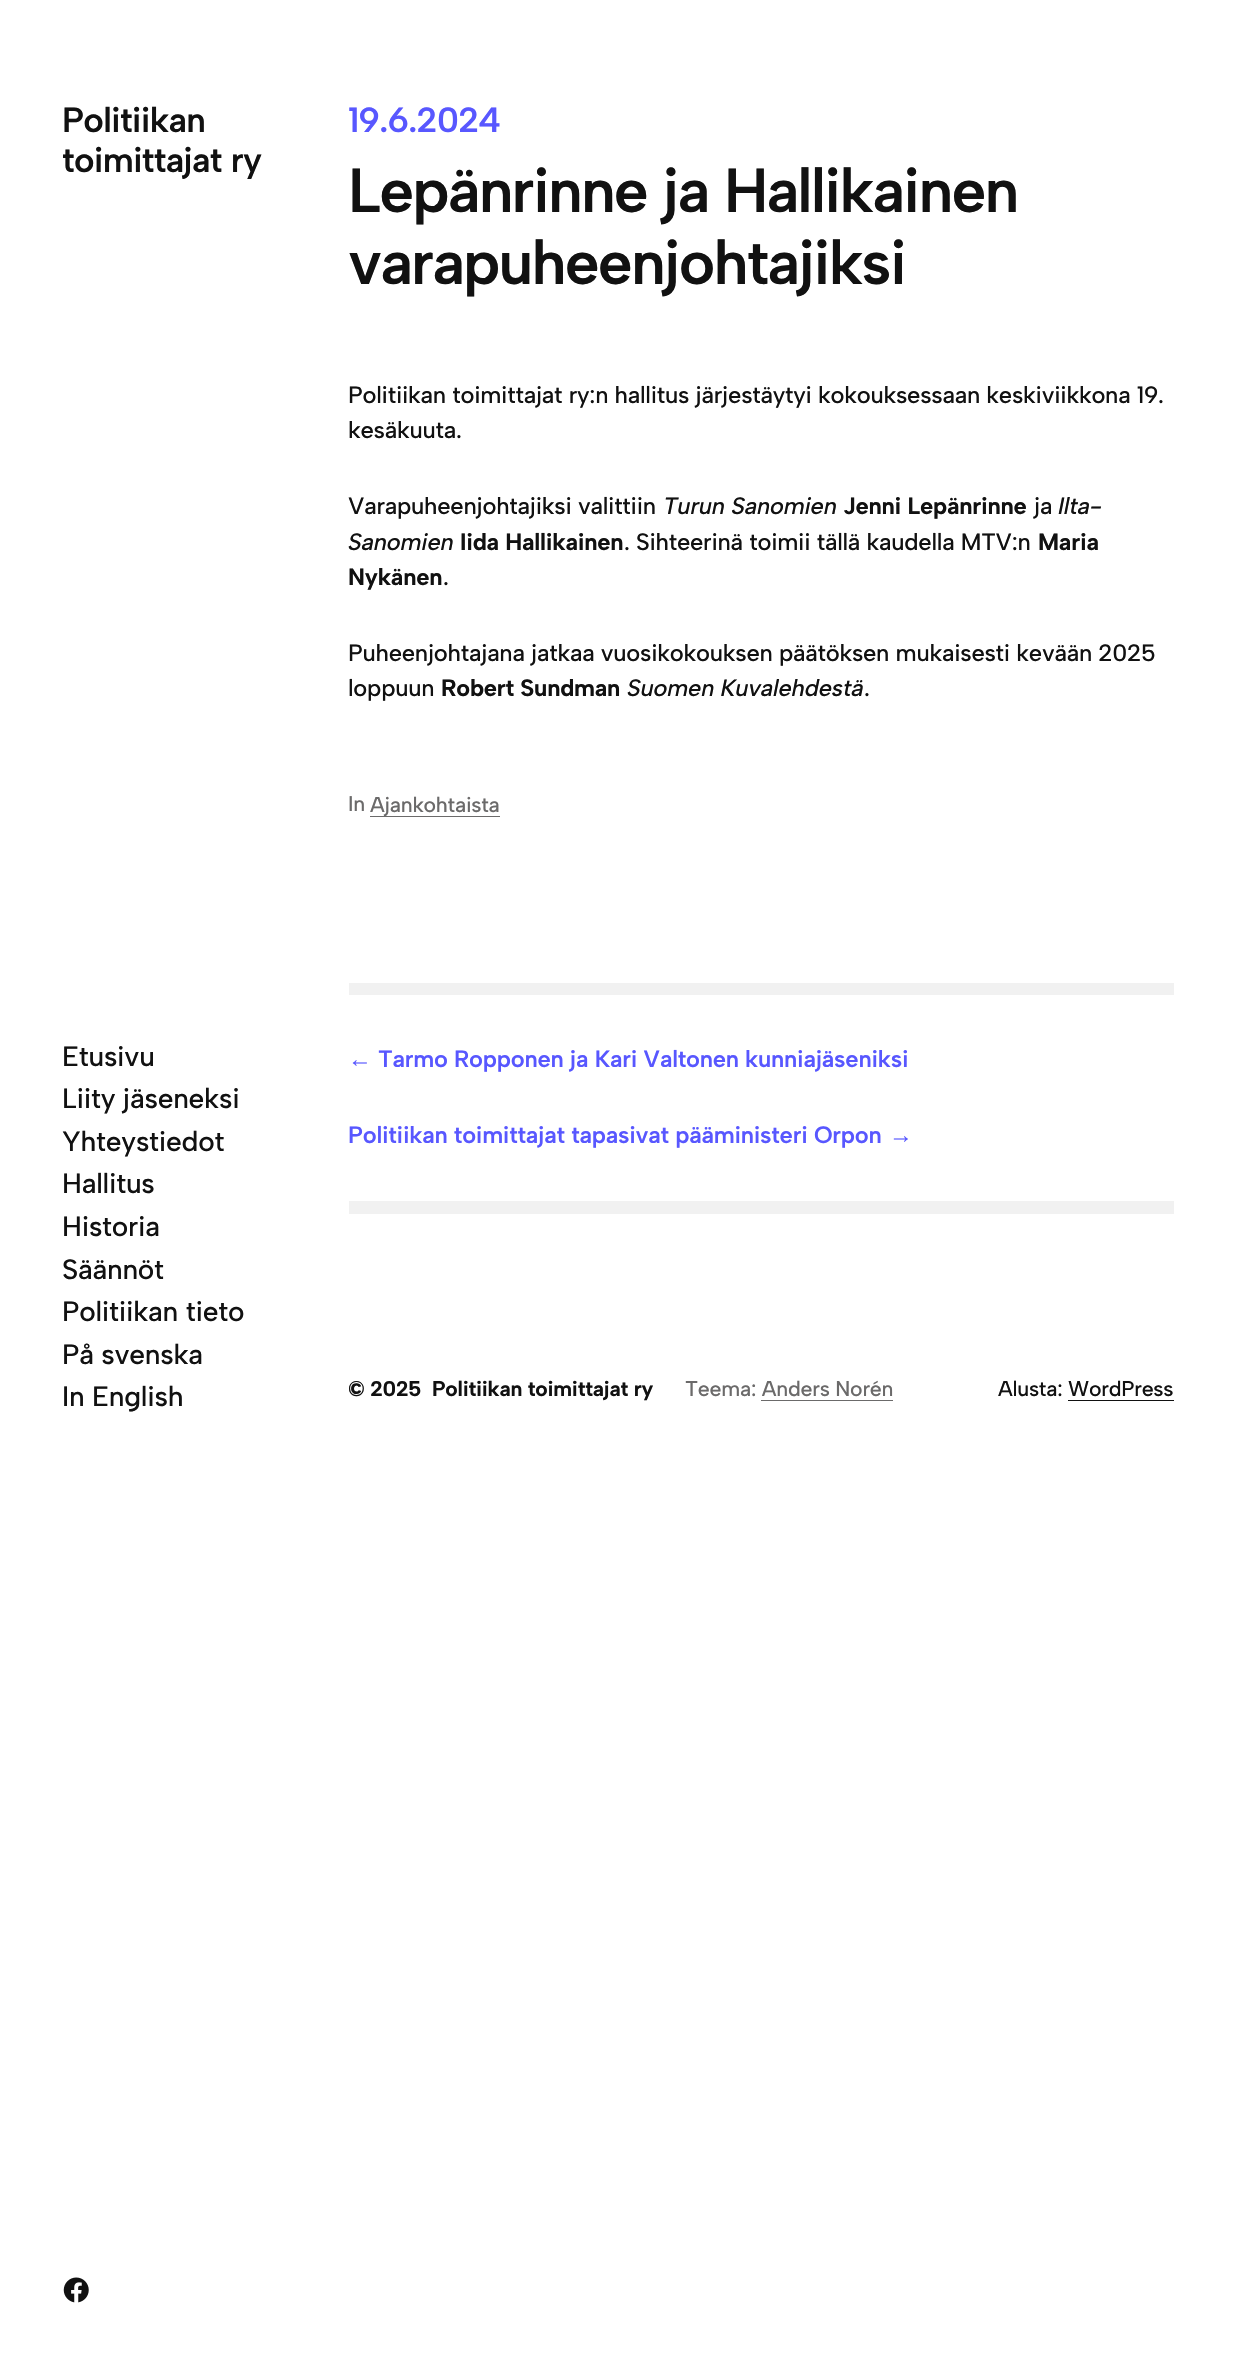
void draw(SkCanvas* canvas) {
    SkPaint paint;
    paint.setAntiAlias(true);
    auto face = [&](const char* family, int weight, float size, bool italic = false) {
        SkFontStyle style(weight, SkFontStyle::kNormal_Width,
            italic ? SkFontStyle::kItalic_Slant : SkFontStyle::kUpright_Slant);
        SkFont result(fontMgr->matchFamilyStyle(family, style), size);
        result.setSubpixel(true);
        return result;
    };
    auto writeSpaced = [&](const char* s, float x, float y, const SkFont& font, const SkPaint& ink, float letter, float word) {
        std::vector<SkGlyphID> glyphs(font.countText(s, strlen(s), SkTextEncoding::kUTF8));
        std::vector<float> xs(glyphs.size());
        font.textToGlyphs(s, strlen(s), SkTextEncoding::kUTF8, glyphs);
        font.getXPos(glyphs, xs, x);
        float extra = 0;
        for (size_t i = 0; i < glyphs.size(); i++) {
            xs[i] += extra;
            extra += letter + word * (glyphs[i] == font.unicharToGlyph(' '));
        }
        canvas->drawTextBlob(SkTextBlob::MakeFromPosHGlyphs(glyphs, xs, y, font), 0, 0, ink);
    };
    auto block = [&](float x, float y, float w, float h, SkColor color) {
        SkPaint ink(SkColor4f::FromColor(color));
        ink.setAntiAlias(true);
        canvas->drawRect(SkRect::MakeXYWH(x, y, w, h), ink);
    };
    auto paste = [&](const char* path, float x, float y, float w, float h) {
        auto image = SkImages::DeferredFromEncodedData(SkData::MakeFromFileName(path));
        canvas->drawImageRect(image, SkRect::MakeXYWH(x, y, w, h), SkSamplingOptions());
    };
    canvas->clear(SK_ColorWHITE);
    auto kFont1 = face("Albert Sans", 600, 35);
    paint.setColor(SkColorSetRGB(17, 17, 17));
    writeSpaced("Politiikan", 62, 132, kFont1, paint, -0.75f, 0);
    writeSpaced("toimittajat ry", 62, 172, kFont1, paint, -0.75f, 0);
    auto kFont2 = face("Albert Sans", 500, 28);
    writeSpaced("Etusivu", 62, 1066, kFont2, paint, -0.25f, 0);
    writeSpaced("Liity jäseneksi", 62, 1108, kFont2, paint, -0.25f, 0);
    writeSpaced("Yhteystiedot", 62, 1151, kFont2, paint, -0.25f, 0);
    writeSpaced("Hallitus", 62, 1193, kFont2, paint, -0.25f, 0);
    writeSpaced("Historia", 62, 1236, kFont2, paint, -0.25f, 0);
    writeSpaced("Säännöt", 62, 1279, kFont2, paint, -0.25f, 0);
    writeSpaced("Politiikan tieto", 62, 1321, kFont2, paint, -0.25f, 0);
    writeSpaced("På svenska", 62, 1364, kFont2, paint, -0.25f, 0);
    writeSpaced("In English", 62, 1406, kFont2, paint, -0.25f, 0);
    paste("pic1.png", 63, 2277, 26, 26);
    paint.setColor(SkColorSetRGB(88, 87, 255));
    writeSpaced("19.6.2024", 348, 132, kFont1, paint, -0.75f, 0);
    auto kFont3 = face("Albert Sans", 600, 62.25f);
    paint.setColor(SkColorSetRGB(17, 17, 17));
    writeSpaced("Lepänrinne ja Hallikainen", 348, 212, kFont3, paint, -1.9f, 0);
    writeSpaced("varapuheenjohtajiksi", 348, 284, kFont3, paint, -1.9f, 0);
    auto kFont4 = face("Albert Sans", 500, 23.7f);
    writeSpaced("Politiikan toimittajat ry:n hallitus järjestäytyi kokouksessaan keskiviikkona 19.", 348, 403, kFont4, paint, -0.25f, 0);
    writeSpaced("kesäkuuta.", 348, 438, kFont4, paint, -0.25f, 0);
    writeSpaced("Varapuheenjohtajiksi valittiin", 348, 514, kFont4, paint, -0.25f, 0);
    auto kFont5 = face("Albert Sans", 500, 23.7f, true);
    writeSpaced("Turun Sanomien", 663, 514, kFont5, paint, -0.25f, 0);
    auto kFont6 = face("Albert Sans", 700, 23.7f);
    writeSpaced("Jenni Lepänrinne", 843, 514, kFont6, paint, -0.25f, 0);
    writeSpaced("ja", 1034, 514, kFont4, paint, -0.25f, 0);
    writeSpaced("Ilta-", 1058, 514, kFont5, paint, -0.25f, 0);
    writeSpaced("Sanomien", 348, 550, kFont5, paint, -0.25f, 0);
    writeSpaced("Iida Hallikainen", 460, 550, kFont6, paint, -0.25f, 0);
    writeSpaced(". Sihteerinä toimii tällä kaudella MTV:n", 624, 550, kFont4, paint, -0.25f, 0);
    writeSpaced("Maria", 1038, 550, kFont6, paint, -0.25f, 0);
    writeSpaced("Nykänen", 348, 585, kFont6, paint, -0.25f, 0);
    writeSpaced(".", 443, 585, kFont4, paint, -0.25f, 0);
    writeSpaced("Puheenjohtajana jatkaa vuosikokouksen päätöksen mukaisesti kevään 2025", 348, 661, kFont4, paint, -0.25f, 0);
    writeSpaced("loppuun", 348, 696, kFont4, paint, -0.25f, 0);
    writeSpaced("Robert Sundman", 441, 696, kFont6, paint, -0.25f, 0);
    writeSpaced("Suomen Kuvalehdestä", 627, 696, kFont5, paint, -0.25f, 0);
    writeSpaced(".", 864, 696, kFont4, paint, -0.25f, 0);
    auto kFont7 = face("Albert Sans", 500, 21.25f);
    paint.setColor(SkColorSetRGB(107, 106, 106));
    writeSpaced("In", 348, 811, kFont7, paint, -0.25f, 0);
    block(370, 816, 130, 1, SkColorSetRGB(107, 106, 106));
    writeSpaced("Ajankohtaista", 370, 812, kFont7, paint, -0.25f, 0);
    block(349, 983, 825, 12, SkColorSetRGB(241, 241, 241));
    auto kFont8 = face("Liberation Sans", 700, 23.7f);
    paint.setColor(SkColorSetRGB(88, 87, 255));
    writeSpaced("←", 348, 1067, kFont8, paint, -0.25f, 0);
    auto kFont9 = face("Albert Sans", 600, 23.7f);
    writeSpaced("Tarmo Ropponen ja Kari Valtonen kunniajäseniksi", 378, 1067, kFont9, paint, -0.25f, 0);
    writeSpaced("Politiikan toimittajat tapasivat pääministeri Orpon", 348, 1143, kFont9, paint, -0.25f, 0);
    writeSpaced("→", 889, 1143, kFont8, paint, -0.25f, 0);
    block(349, 1201, 825, 13, SkColorSetRGB(241, 241, 241));
    auto kFont10 = face("Albert Sans", 700, 21.25f);
    paint.setColor(SkColorSetRGB(17, 17, 17));
    writeSpaced("© 2025", 348, 1396, kFont10, paint, -0.25f, 0);
    writeSpaced("Politiikan toimittajat ry", 432, 1396, kFont10, paint, -0.25f, 0);
    paint.setColor(SkColorSetRGB(107, 106, 106));
    writeSpaced("Teema: Anders Norén", 685, 1396, kFont7, paint, -0.25f, 0);
    block(761, 1400, 132, 1, SkColorSetRGB(107, 106, 106));
    paint.setColor(SkColorSetRGB(17, 17, 17));
    writeSpaced("Alusta: WordPress", 998, 1396, kFont7, paint, -0.25f, 0);
    block(1068, 1400, 106, 1, SkColorSetRGB(17, 17, 17));
}
